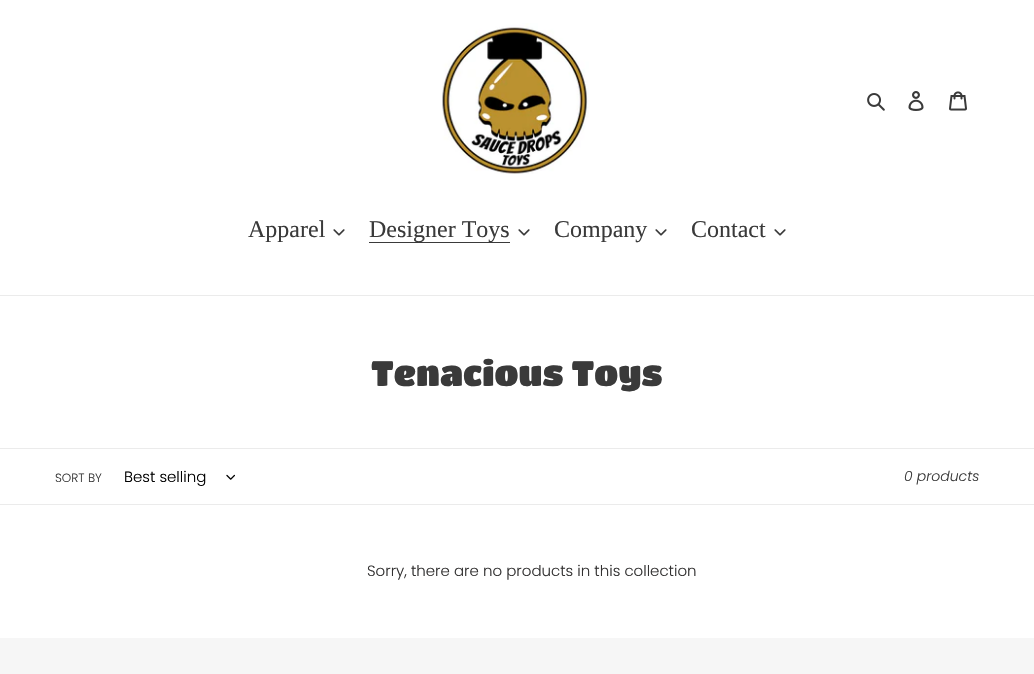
void draw(SkCanvas* canvas) {
    SkPaint paint;
    paint.setAntiAlias(true);
    auto face = [&](const char* family, int weight, float size, bool italic = false) {
        SkFontStyle style(weight, SkFontStyle::kNormal_Width,
            italic ? SkFontStyle::kItalic_Slant : SkFontStyle::kUpright_Slant);
        SkFont result(fontMgr->matchFamilyStyle(family, style), size);
        result.setSubpixel(true);
        return result;
    };
    auto write = [&](const char* s, float x, float y, const SkFont& font, SkColor color) {
        SkPaint ink(SkColor4f::FromColor(color));
        ink.setAntiAlias(true);
        canvas->drawString(s, x, y, font, ink);
    };
    auto block = [&](float x, float y, float w, float h, SkColor color) {
        SkPaint ink(SkColor4f::FromColor(color));
        ink.setAntiAlias(true);
        canvas->drawRect(SkRect::MakeXYWH(x, y, w, h), ink);
    };
    auto paste = [&](const char* path, float x, float y, float w, float h) {
        auto image = SkImages::DeferredFromEncodedData(SkData::MakeFromFileName(path));
        canvas->drawImageRect(image, SkRect::MakeXYWH(x, y, w, h), SkSamplingOptions());
    };
    canvas->clear(SK_ColorWHITE);
    paste("pic1.png", 442, 23, 147, 151);
    paste("pic2.png", 867, 93, 18, 18);
    paste("pic3.png", 908, 91, 16, 20);
    paste("pic4.png", 949, 91, 18, 20);
    block(0, 295, 1034, 1, SkColorSetRGB(235, 235, 235));
    auto kFont1 = face("Liberation Serif", 400, 24);
    write("Apparel", 248, 237, kFont1, SkColorSetRGB(58, 58, 58));
    paste("pic5.png", 333, 229, 12, 7);
    block(369, 242, 141, 1, SkColorSetRGB(58, 58, 58));
    write("Designer Toys", 369, 237, kFont1, SkColorSetRGB(58, 58, 58));
    paste("pic5.png", 518, 229, 12, 7);
    write("Company", 554, 237, kFont1, SkColorSetRGB(58, 58, 58));
    paste("pic5.png", 655, 229, 12, 7);
    write("Contact", 691, 237, kFont1, SkColorSetRGB(58, 58, 58));
    paste("pic5.png", 774, 229, 12, 7);
    auto kFont2 = face("Titan One", 400, 35);
    write("Tenacious Toys", 371, 386, kFont2, SkColorSetRGB(58, 58, 58));
    block(0, 448, 1034, 1, SkColorSetRGB(235, 235, 235));
    block(0, 504, 1034, 1, SkColorSetRGB(235, 235, 235));
    auto kFont3 = face("Poppins", 300, 12);
    write("SORT BY", 55, 482, kFont3, SkColorSetRGB(58, 58, 58));
    auto kFont4 = face("Poppins", 300, 15);
    write("Best selling", 124, 482, kFont4, SK_ColorBLACK);
    paste("pic6.png", 226, 474, 9, 6);
    auto kFont5 = face("Poppins", 300, 14, true);
    write("0 products", 904, 481, kFont5, SkColorSetRGB(58, 58, 58));
    write("Sorry, there are no products in this collection", 367, 576, kFont4, SkColorSetRGB(51, 50, 50));
    block(0, 638, 1034, 36, SkColorSetRGB(246, 246, 246));
}
